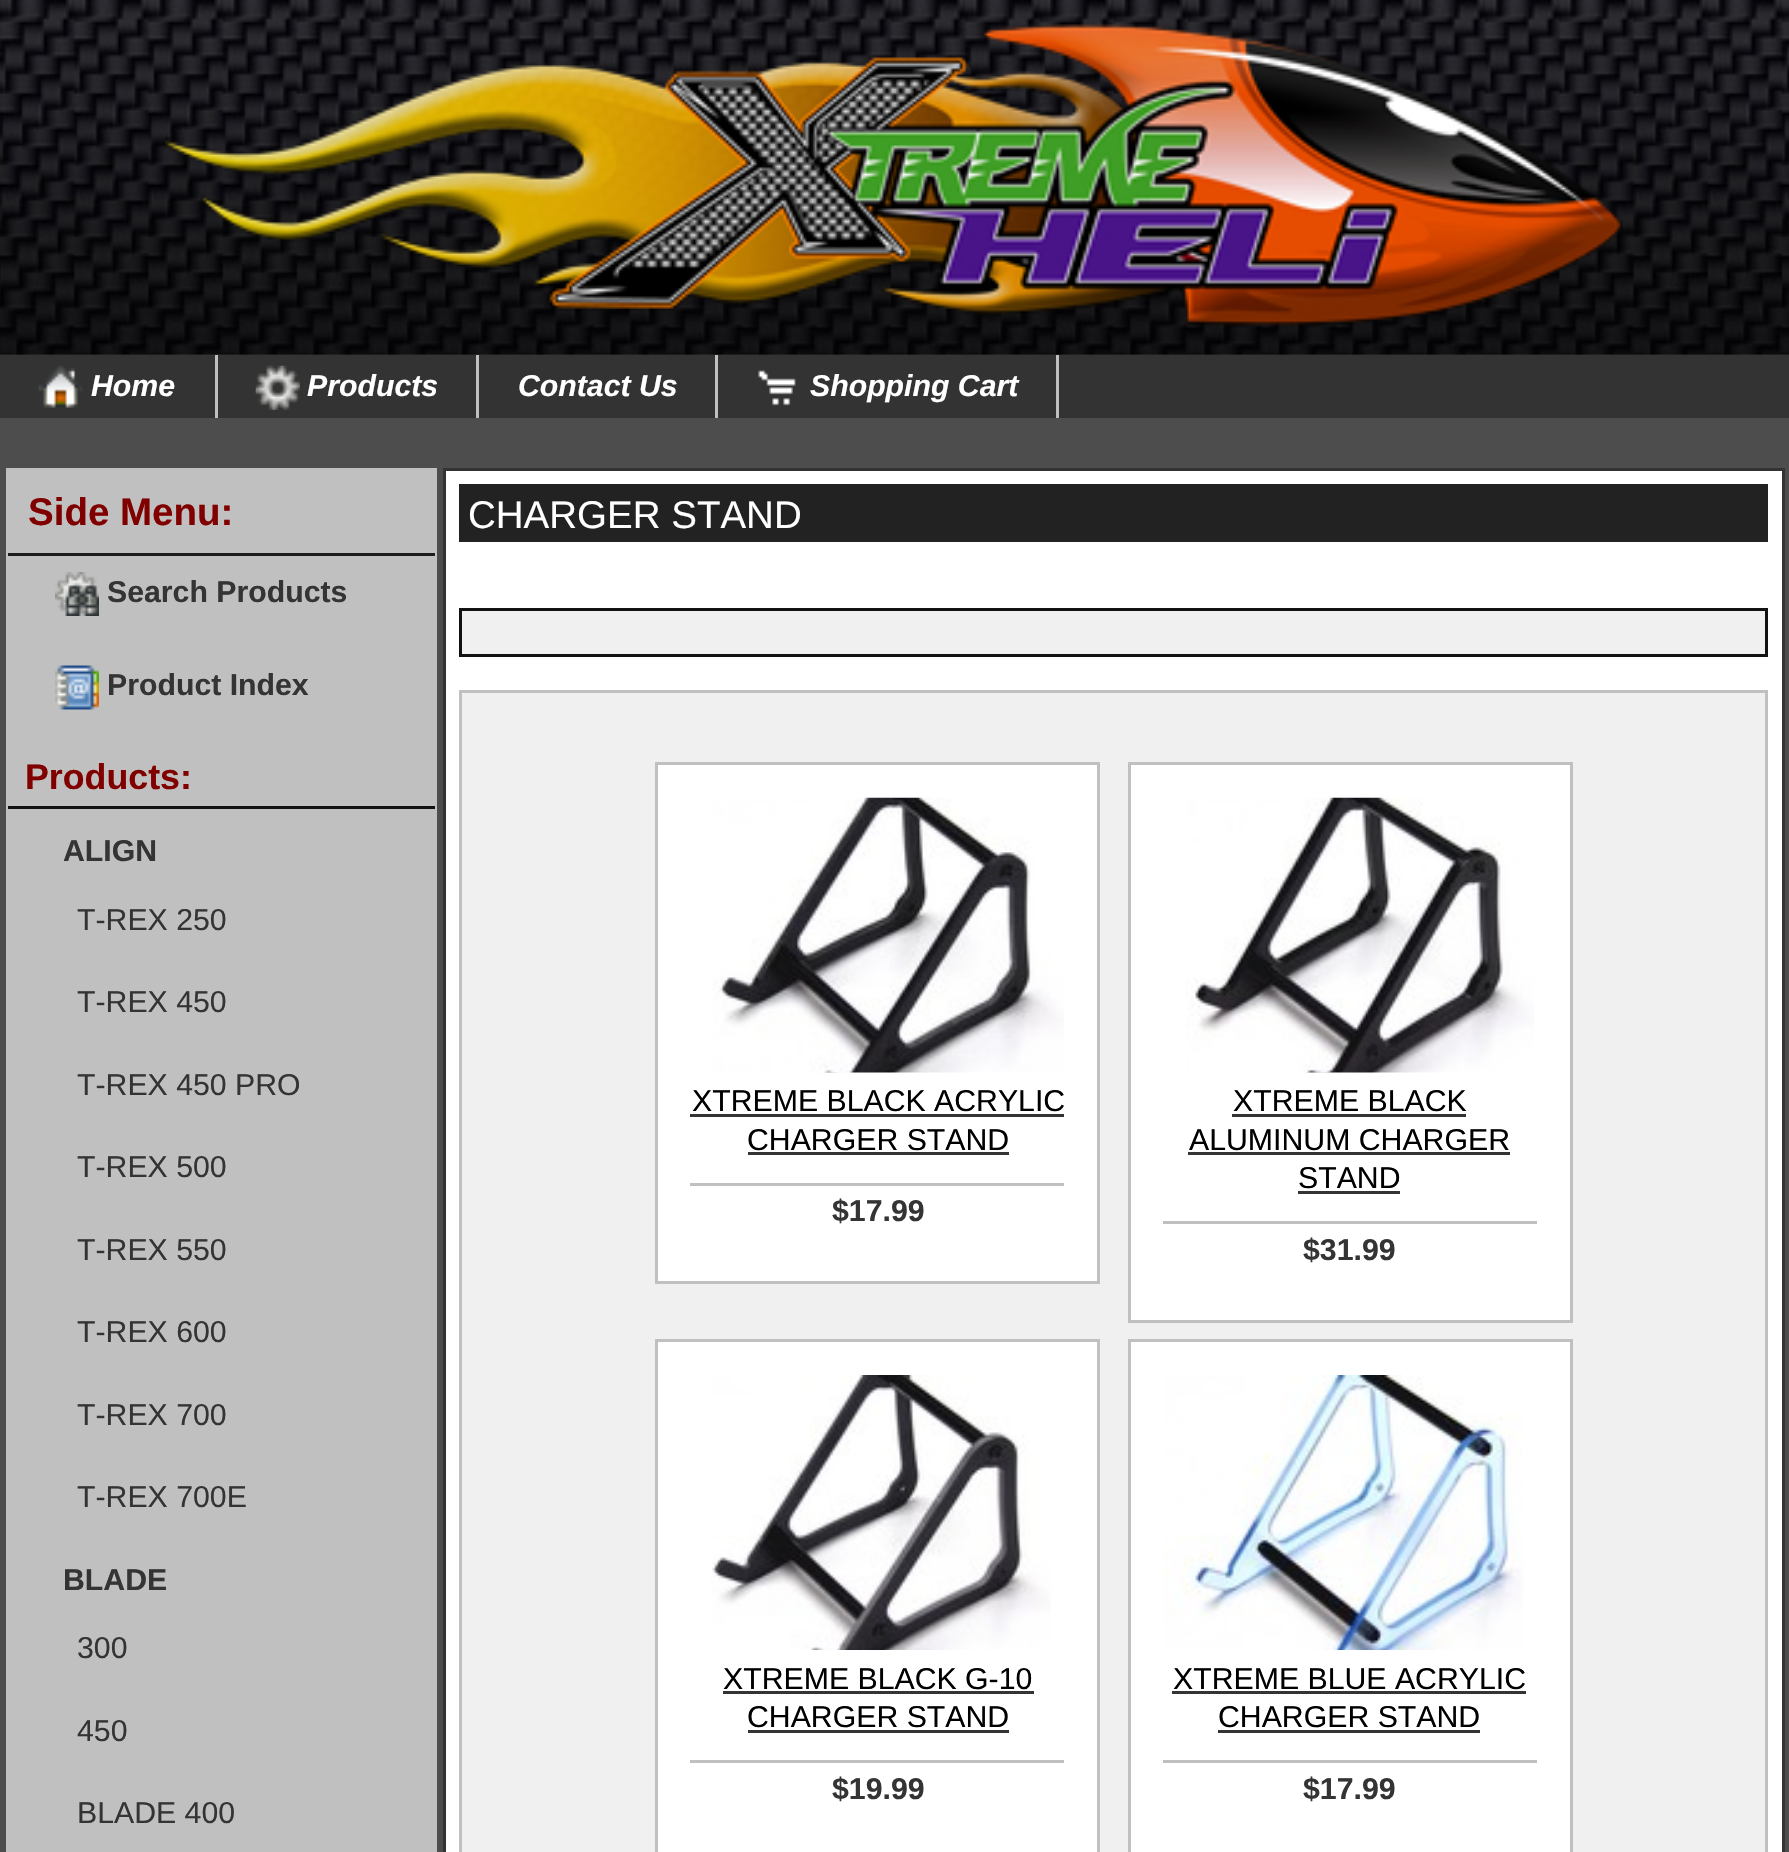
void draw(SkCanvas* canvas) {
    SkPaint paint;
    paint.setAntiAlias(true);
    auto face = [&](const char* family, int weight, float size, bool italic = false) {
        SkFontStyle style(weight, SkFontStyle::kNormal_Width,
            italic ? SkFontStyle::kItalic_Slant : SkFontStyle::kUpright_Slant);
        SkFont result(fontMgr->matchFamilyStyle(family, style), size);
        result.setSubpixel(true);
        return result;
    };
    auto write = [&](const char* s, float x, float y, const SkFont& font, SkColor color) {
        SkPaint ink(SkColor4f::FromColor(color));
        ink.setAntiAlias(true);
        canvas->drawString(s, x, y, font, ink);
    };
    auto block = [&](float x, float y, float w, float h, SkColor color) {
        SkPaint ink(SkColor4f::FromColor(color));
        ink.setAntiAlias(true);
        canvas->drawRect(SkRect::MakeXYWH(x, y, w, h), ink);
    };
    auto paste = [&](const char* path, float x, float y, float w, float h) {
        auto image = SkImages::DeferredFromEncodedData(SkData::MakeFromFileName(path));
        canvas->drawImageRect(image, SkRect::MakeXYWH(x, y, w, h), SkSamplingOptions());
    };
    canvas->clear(SkColorSetRGB(77, 77, 77));
    paste("pic1.png", 0, 0, 1789, 355);
    paste("pic2.png", 165, 24, 1458, 302);
    block(0, 355, 1789, 63, SkColorSetRGB(51, 51, 51));
    block(215, 355, 3, 63, SkColorSetRGB(192, 192, 192));
    paste("pic3.png", 38, 366, 45, 42);
    auto kFont1 = face("Liberation Sans", 700, 30.25f, true);
    write("Home", 91, 396, kFont1, SK_ColorWHITE);
    block(476, 355, 3, 63, SkColorSetRGB(192, 192, 192));
    paste("pic4.png", 255, 365, 45, 45);
    write("Products", 307, 396, kFont1, SK_ColorWHITE);
    block(715, 355, 3, 63, SkColorSetRGB(192, 192, 192));
    write("Contact Us", 518, 396, kFont1, SK_ColorWHITE);
    block(1056, 355, 3, 63, SkColorSetRGB(192, 192, 192));
    paste("pic5.png", 758, 370, 38, 36);
    write("Shopping Cart", 810, 396, kFont1, SK_ColorWHITE);
    block(6, 468, 431, 1384, SkColorSetRGB(192, 192, 192));
    block(8, 553, 427, 3, SkColorSetRGB(29, 29, 29));
    auto kFont2 = face("Liberation Sans", 700, 38.5f);
    write("Side Menu:", 28, 525, kFont2, SkColorSetRGB(128, 0, 0));
    paste("pic6.png", 55, 572, 44, 44);
    auto kFont3 = face("Liberation Sans", 700, 30.25f);
    write("Search Products", 107, 602, kFont3, SkColorSetRGB(52, 52, 52));
    paste("pic7.png", 55, 665, 44, 45);
    write("Product Index", 107, 695, kFont3, SkColorSetRGB(52, 52, 52));
    block(8, 806, 427, 3, SkColorSetRGB(18, 18, 18));
    auto kFont4 = face("Liberation Sans", 700, 35.75f);
    write("Products:", 25, 789, kFont4, SkColorSetRGB(128, 0, 0));
    write("ALIGN", 63, 861, kFont3, SkColorSetRGB(52, 52, 52));
    auto kFont5 = face("Liberation Sans", 400, 30.25f);
    write("T-REX 250", 77, 930, kFont5, SkColorSetRGB(52, 52, 52));
    write("T-REX 450", 77, 1012, kFont5, SkColorSetRGB(52, 52, 52));
    write("T-REX 450 PRO", 77, 1095, kFont5, SkColorSetRGB(52, 52, 52));
    write("T-REX 500", 77, 1177, kFont5, SkColorSetRGB(52, 52, 52));
    write("T-REX 550", 77, 1260, kFont5, SkColorSetRGB(52, 52, 52));
    write("T-REX 600", 77, 1342, kFont5, SkColorSetRGB(52, 52, 52));
    write("T-REX 700", 77, 1425, kFont5, SkColorSetRGB(52, 52, 52));
    write("T-REX 700E", 77, 1507, kFont5, SkColorSetRGB(52, 52, 52));
    write("BLADE", 63, 1590, kFont3, SkColorSetRGB(52, 52, 52));
    write("300", 77, 1658, kFont5, SkColorSetRGB(52, 52, 52));
    write("450", 77, 1741, kFont5, SkColorSetRGB(52, 52, 52));
    write("BLADE 400", 77, 1823, kFont5, SkColorSetRGB(52, 52, 52));
    paint.setColor(SK_ColorWHITE);
    canvas->drawRect(SkRect::MakeXYWH(444.5f, 469.5f, 1339, 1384), paint);
    paint.setStyle(SkPaint::kStroke_Style);
    paint.setStrokeWidth(3);
    paint.setColor(SkColorSetRGB(51, 51, 51));
    canvas->drawRect(SkRect::MakeXYWH(444.5f, 469.5f, 1339, 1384), paint);
    block(459, 484, 1309, 58, SkColorSetRGB(34, 34, 34));
    auto kFont6 = face("Liberation Sans", 400, 38.5f);
    write("CHARGER STAND", 468, 528, kFont6, SK_ColorWHITE);
    paint.setStyle(SkPaint::kFill_Style);
    paint.setColor(SkColorSetRGB(240, 240, 240));
    canvas->drawRect(SkRect::MakeXYWH(460.5f, 609.5f, 1306, 46), paint);
    paint.setStyle(SkPaint::kStroke_Style);
    paint.setColor(SkColorSetRGB(18, 18, 18));
    canvas->drawRect(SkRect::MakeXYWH(460.5f, 609.5f, 1306, 46), paint);
    paint.setStyle(SkPaint::kFill_Style);
    paint.setColor(SkColorSetRGB(240, 240, 240));
    canvas->drawRect(SkRect::MakeXYWH(460.5f, 691.5f, 1306, 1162), paint);
    paint.setStyle(SkPaint::kStroke_Style);
    paint.setColor(SkColorSetRGB(192, 192, 192));
    canvas->drawRect(SkRect::MakeXYWH(460.5f, 691.5f, 1306, 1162), paint);
    paint.setStyle(SkPaint::kFill_Style);
    paint.setColor(SK_ColorWHITE);
    canvas->drawRect(SkRect::MakeXYWH(656.5f, 763.5f, 442, 519), paint);
    paint.setStyle(SkPaint::kStroke_Style);
    paint.setColor(SkColorSetRGB(192, 192, 192));
    canvas->drawRect(SkRect::MakeXYWH(656.5f, 763.5f, 442, 519), paint);
    paste("pic8.png", 713, 797, 351, 276);
    write("XTREME BLACK ACRYLIC", 692, 1111, kFont5, SK_ColorBLACK);
    block(690, 1114, 374, 3, SkColorSetRGB(52, 52, 52));
    write("CHARGER STAND", 747, 1150, kFont5, SK_ColorBLACK);
    block(748, 1152, 261, 3, SkColorSetRGB(52, 52, 52));
    block(690, 1183, 374, 3, SkColorSetRGB(192, 192, 192));
    write("$17.99", 832, 1221, kFont3, SkColorSetRGB(52, 52, 52));
    paint.setStyle(SkPaint::kFill_Style);
    paint.setColor(SK_ColorWHITE);
    canvas->drawRect(SkRect::MakeXYWH(1129.5f, 763.5f, 442, 558), paint);
    paint.setStyle(SkPaint::kStroke_Style);
    paint.setColor(SkColorSetRGB(192, 192, 192));
    canvas->drawRect(SkRect::MakeXYWH(1129.5f, 763.5f, 442, 558), paint);
    paste("pic9.png", 1186, 797, 348, 276);
    write("XTREME BLACK", 1233, 1111, kFont5, SK_ColorBLACK);
    block(1232, 1114, 234, 3, SkColorSetRGB(52, 52, 52));
    write("ALUMINUM CHARGER", 1189, 1150, kFont5, SK_ColorBLACK);
    block(1188, 1152, 322, 3, SkColorSetRGB(52, 52, 52));
    write("STAND", 1298, 1188, kFont5, SK_ColorBLACK);
    block(1298, 1191, 102, 3, SkColorSetRGB(52, 52, 52));
    block(1163, 1221, 374, 3, SkColorSetRGB(192, 192, 192));
    write("$31.99", 1303, 1260, kFont3, SkColorSetRGB(52, 52, 52));
    paint.setStyle(SkPaint::kFill_Style);
    paint.setColor(SK_ColorWHITE);
    canvas->drawRect(SkRect::MakeXYWH(656.5f, 1340.5f, 442, 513), paint);
    paint.setStyle(SkPaint::kStroke_Style);
    paint.setColor(SkColorSetRGB(192, 192, 192));
    canvas->drawRect(SkRect::MakeXYWH(656.5f, 1340.5f, 442, 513), paint);
    paste("pic10.png", 711, 1375, 340, 275);
    write("XTREME BLACK G-10", 723, 1689, kFont5, SK_ColorBLACK);
    block(723, 1691, 311, 3, SkColorSetRGB(52, 52, 52));
    write("CHARGER STAND", 747, 1727, kFont5, SK_ColorBLACK);
    block(748, 1730, 261, 3, SkColorSetRGB(52, 52, 52));
    block(690, 1760, 374, 3, SkColorSetRGB(192, 192, 192));
    write("$19.99", 832, 1799, kFont3, SkColorSetRGB(52, 52, 52));
    paint.setStyle(SkPaint::kFill_Style);
    paint.setColor(SK_ColorWHITE);
    canvas->drawRect(SkRect::MakeXYWH(1129.5f, 1340.5f, 442, 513), paint);
    paint.setStyle(SkPaint::kStroke_Style);
    paint.setColor(SkColorSetRGB(192, 192, 192));
    canvas->drawRect(SkRect::MakeXYWH(1129.5f, 1340.5f, 442, 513), paint);
    paste("pic11.png", 1164, 1375, 359, 275);
    write("XTREME BLUE ACRYLIC", 1173, 1689, kFont5, SK_ColorBLACK);
    block(1172, 1691, 354, 3, SkColorSetRGB(52, 52, 52));
    write("CHARGER STAND", 1218, 1727, kFont5, SK_ColorBLACK);
    block(1218, 1730, 262, 3, SkColorSetRGB(52, 52, 52));
    block(1163, 1760, 374, 3, SkColorSetRGB(192, 192, 192));
    write("$17.99", 1303, 1799, kFont3, SkColorSetRGB(52, 52, 52));
}
